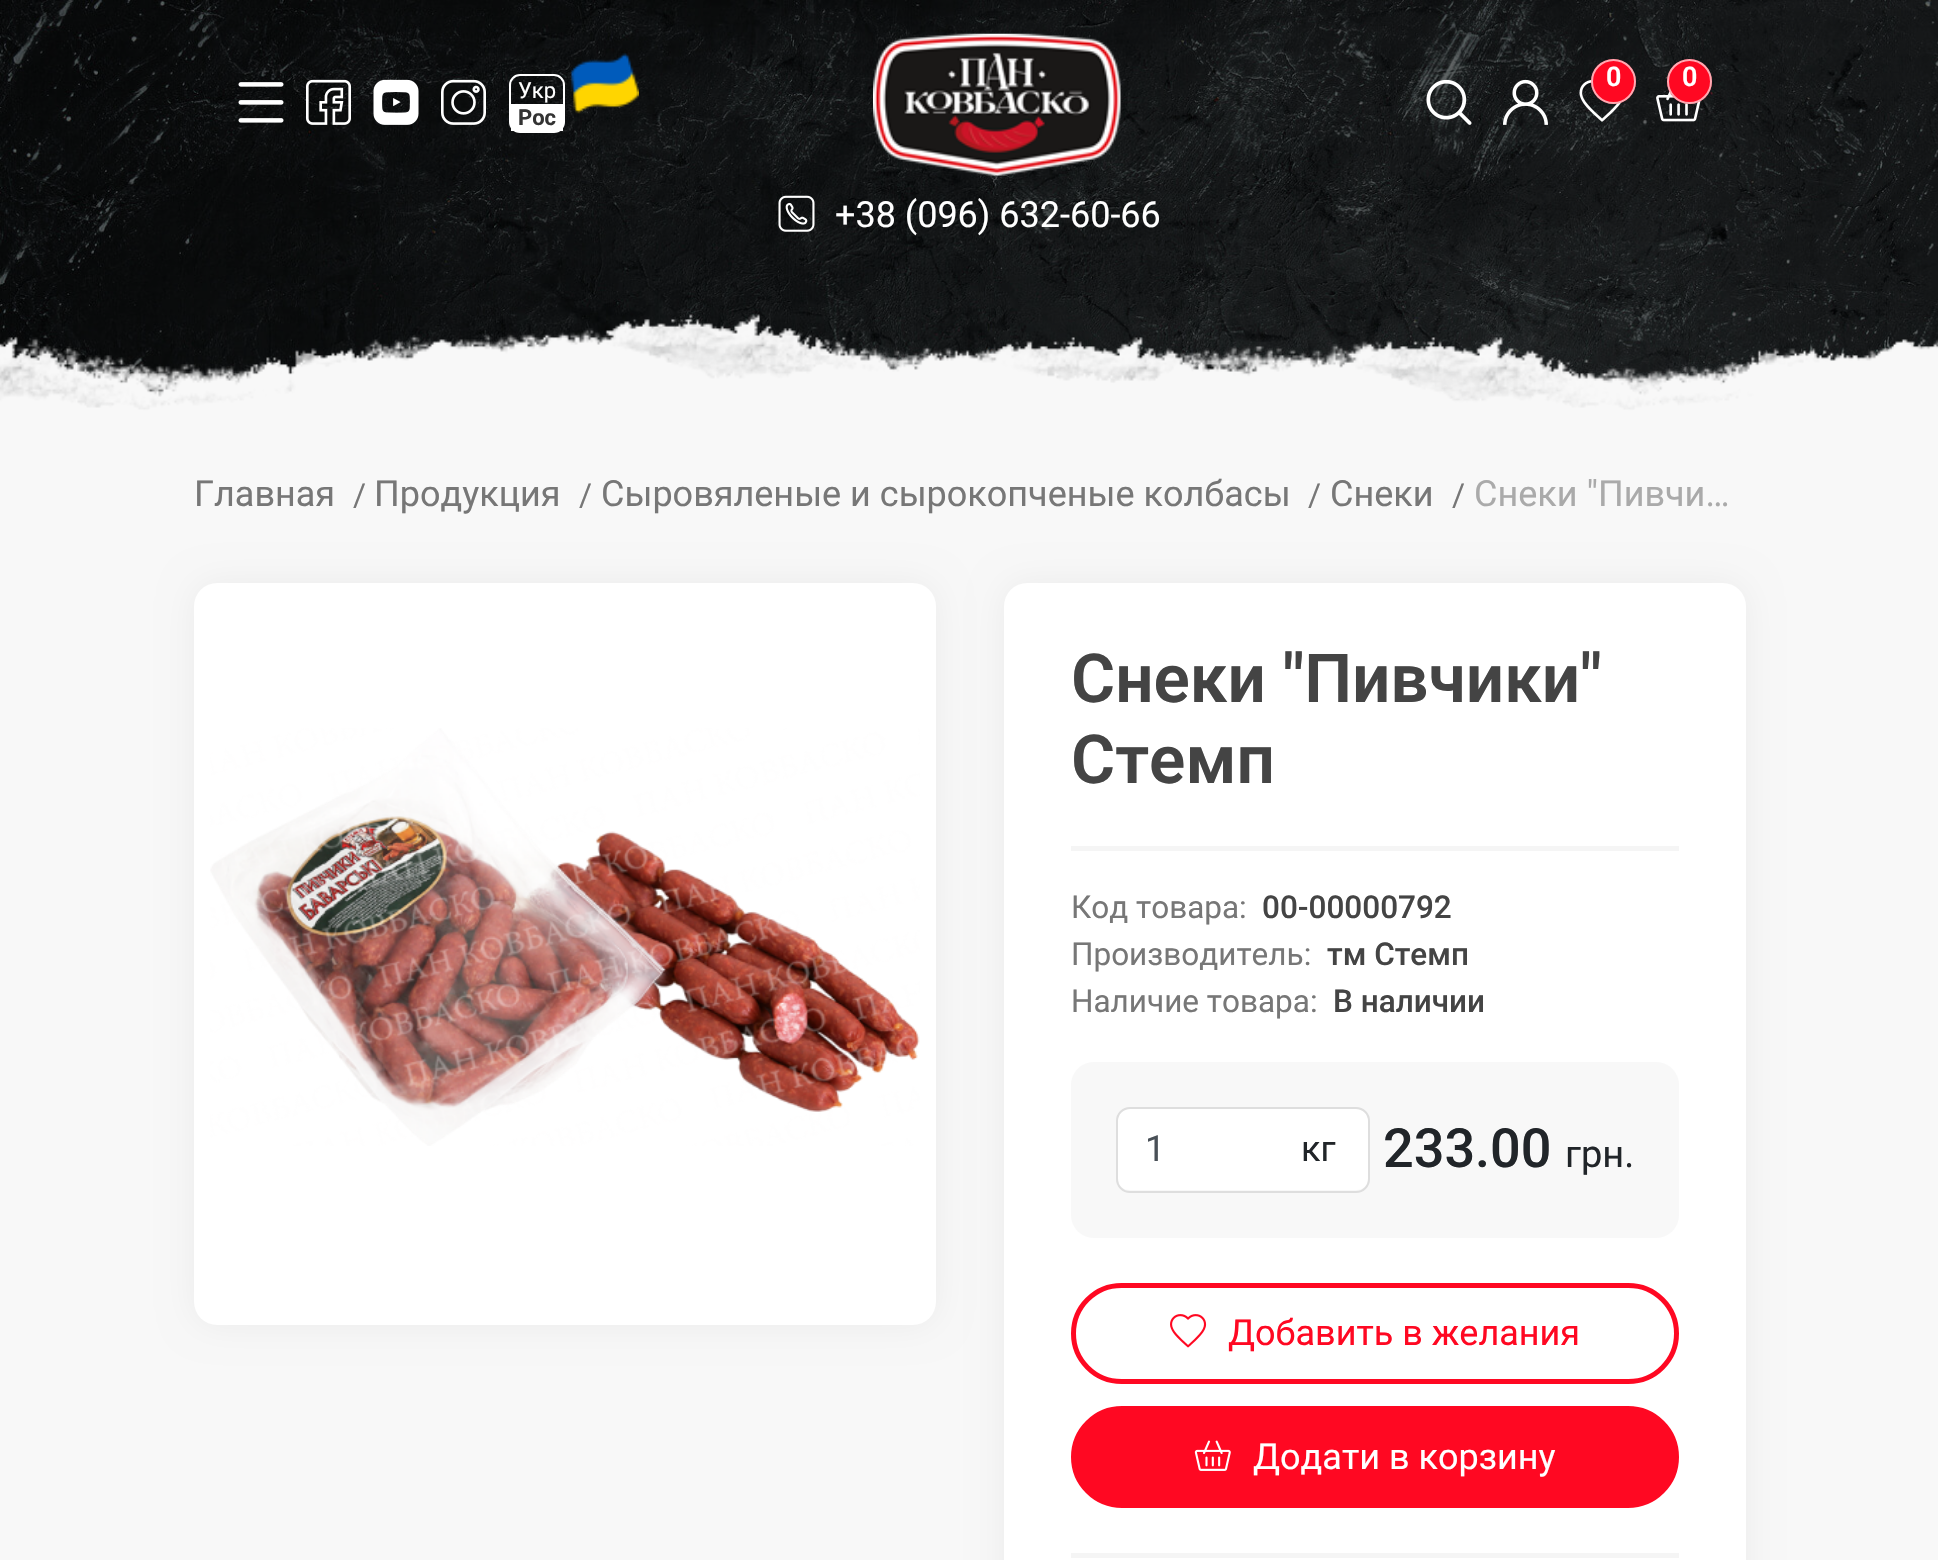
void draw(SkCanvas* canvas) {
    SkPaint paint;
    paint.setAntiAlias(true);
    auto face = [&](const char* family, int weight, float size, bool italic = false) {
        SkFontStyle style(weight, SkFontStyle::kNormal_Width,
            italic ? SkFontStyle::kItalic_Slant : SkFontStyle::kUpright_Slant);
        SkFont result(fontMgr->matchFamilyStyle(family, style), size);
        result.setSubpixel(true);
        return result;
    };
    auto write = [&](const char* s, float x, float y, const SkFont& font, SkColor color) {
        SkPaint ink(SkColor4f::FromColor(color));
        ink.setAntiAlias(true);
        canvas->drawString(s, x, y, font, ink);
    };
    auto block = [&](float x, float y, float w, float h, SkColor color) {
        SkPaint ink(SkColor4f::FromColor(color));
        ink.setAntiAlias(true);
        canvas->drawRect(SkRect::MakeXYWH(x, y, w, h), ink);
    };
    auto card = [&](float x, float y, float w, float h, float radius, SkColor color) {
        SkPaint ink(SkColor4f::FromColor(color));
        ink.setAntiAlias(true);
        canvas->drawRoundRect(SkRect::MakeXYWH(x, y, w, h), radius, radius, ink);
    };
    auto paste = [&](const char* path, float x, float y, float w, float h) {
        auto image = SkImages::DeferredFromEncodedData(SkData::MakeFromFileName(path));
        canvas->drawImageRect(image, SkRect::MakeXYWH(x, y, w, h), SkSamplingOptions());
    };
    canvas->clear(SK_ColorWHITE);
    paste("pic1.png", 0, 0, 1938, 411);
    paste("pic2.png", 873, 33, 248, 143);
    paste("pic3.png", 1579, 80, 43, 42);
    paint.setColor(SkColorSetRGB(255, 8, 34));
    canvas->drawCircle(1613.5f, 81.5f, 22.5f, paint);
    paint.setStyle(SkPaint::kStroke_Style);
    paint.setStrokeWidth(2);
    paint.setColor(SkColorSetARGB(166, 255, 255, 255));
    canvas->drawCircle(1613.5f, 81.5f, 21.5f, paint);
    auto kFont1 = face("Roboto", 600, 27);
    write("0", 1606, 86, kFont1, SK_ColorWHITE);
    paste("pic4.png", 1656, 90, 45, 32);
    paint.setStyle(SkPaint::kFill_Style);
    paint.setColor(SkColorSetRGB(255, 8, 34));
    canvas->drawCircle(1689.5f, 81.5f, 22.5f, paint);
    paint.setStyle(SkPaint::kStroke_Style);
    paint.setColor(SkColorSetARGB(166, 255, 255, 255));
    canvas->drawCircle(1689.5f, 81.5f, 21.5f, paint);
    write("0", 1682, 86, kFont1, SK_ColorWHITE);
    paste("pic5.png", 1426, 79, 46, 46);
    paste("pic6.png", 1503, 79, 45, 46);
    paste("pic7.png", 238, 82, 46, 41);
    paste("pic8.png", 306, 79, 45, 46);
    paste("pic9.png", 373, 79, 46, 46);
    paste("pic10.png", 441, 79, 45, 46);
    paint.setColor(SK_ColorWHITE);
    canvas->drawRoundRect(SkRect::MakeXYWH(510, 75, 54, 57), 10, 10, paint);
    auto kFont2 = face("Roboto", 400, 22);
    write("Укр", 518, 98, kFont2, SK_ColorWHITE);
    paste("pic11.png", 571, 53, 68, 61);
    block(511, 104, 52, 27, SK_ColorWHITE);
    auto kFont3 = face("Roboto", 700, 22);
    write("Рос", 518, 125, kFont3, SkColorSetRGB(51, 51, 51));
    paste("pic12.png", 778, 195, 37, 37);
    auto kFont4 = face("Roboto", 400, 36);
    write("+38 (096) 632-60-66", 835, 227, kFont4, SK_ColorWHITE);
    block(0, 412, 1938, 1148, SkColorSetRGB(248, 248, 248));
    paste("pic13.png", 0, 314, 1938, 98);
    write("Главная", 194, 506, kFont4, SkColorSetRGB(119, 119, 119));
    auto kFont5 = face("Roboto", 400, 31.5f);
    write("/", 353, 506, kFont5, SkColorSetRGB(119, 119, 119));
    write("Продукция", 374, 506, kFont4, SkColorSetRGB(119, 119, 119));
    write("/", 579, 506, kFont5, SkColorSetRGB(119, 119, 119));
    write("Сыровяленые и сырокопченые колбасы", 601, 506, kFont4, SkColorSetRGB(119, 119, 119));
    write("/", 1308, 506, kFont5, SkColorSetRGB(119, 119, 119));
    write("Снеки", 1330, 506, kFont4, SkColorSetRGB(119, 119, 119));
    write("/", 1452, 506, kFont5, SkColorSetRGB(119, 119, 119));
    write("Снеки \"Пивчи…", 1474, 506, kFont4, SkColorSetRGB(170, 170, 170));
    paint.setStyle(SkPaint::kFill_Style);
    paint.setColor(SkColorSetARGB(13, 0, 0, 0));
    paint.setMaskFilter(SkMaskFilter::MakeBlur(kNormal_SkBlurStyle, 17));
    canvas->drawRoundRect(SkRect::MakeXYWH(194, 583, 742, 742), 23, 23, paint);
    paint.setMaskFilter(nullptr);
    card(194, 583, 742, 742, 23, SK_ColorWHITE);
    paste("pic14.png", 210, 728, 710, 418);
    paint.setMaskFilter(SkMaskFilter::MakeBlur(kNormal_SkBlurStyle, 17));
    canvas->drawRoundRect(SkRect::MakeXYWH(1004, 583, 742, 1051), 23, 23, paint);
    paint.setMaskFilter(nullptr);
    card(1004, 583, 742, 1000, 23, SK_ColorWHITE);
    block(1071, 846, 608, 5, SkColorSetRGB(245, 245, 245));
    auto kFont6 = face("Roboto", 600, 67.5f);
    write("Снеки \"Пивчики\"", 1071, 702, kFont6, SkColorSetRGB(68, 68, 68));
    write("Стемп", 1071, 783, kFont6, SkColorSetRGB(68, 68, 68));
    write("Код товара:", 1071, 918, kFont5, SkColorSetRGB(119, 119, 119));
    auto kFont7 = face("Roboto", 500, 31.5f);
    write("00-00000792", 1262, 918, kFont7, SkColorSetRGB(68, 68, 68));
    write("Производитель:", 1071, 965, kFont5, SkColorSetRGB(119, 119, 119));
    write("тм Стемп", 1327, 965, kFont7, SkColorSetRGB(68, 68, 68));
    write("Наличие товара:", 1071, 1012, kFont5, SkColorSetRGB(119, 119, 119));
    write("В наличии", 1333, 1012, kFont7, SkColorSetRGB(68, 68, 68));
    card(1071, 1062, 608, 176, 23, SkColorSetRGB(248, 248, 248));
    card(1118, 1109, 250, 81, 11, SK_ColorWHITE);
    paint.setStyle(SkPaint::kStroke_Style);
    paint.setColor(SkColorSetRGB(222, 222, 222));
    canvas->drawRoundRect(SkRect::MakeXYWH(1117, 1108, 252, 84), 13, 13, paint);
    write("1", 1145, 1161, kFont4, SkColorSetRGB(73, 80, 87));
    write("кг", 1301, 1161, kFont4, SkColorSetRGB(33, 37, 41));
    auto kFont8 = face("Roboto", 500, 54);
    write("233.00", 1383, 1167, kFont8, SkColorSetRGB(33, 37, 41));
    auto kFont9 = face("Roboto", 400, 38);
    write("грн.", 1565, 1167, kFont9, SkColorSetRGB(33, 37, 41));
    paint.setStrokeWidth(5);
    paint.setColor(SkColorSetRGB(255, 8, 34));
    canvas->drawRoundRect(SkRect::MakeXYWH(1073.5f, 1285.5f, 603, 96), 48, 48, paint);
    paste("pic15.png", 1170, 1314, 37, 34);
    write("Добавить в желания", 1228, 1345, kFont4, SkColorSetRGB(255, 8, 34));
    paint.setStyle(SkPaint::kFill_Style);
    canvas->drawRoundRect(SkRect::MakeXYWH(1073.5f, 1408.5f, 603, 97), 48.5f, 48.5f, paint);
    paint.setStyle(SkPaint::kStroke_Style);
    canvas->drawRoundRect(SkRect::MakeXYWH(1073.5f, 1408.5f, 603, 97), 48.5f, 48.5f, paint);
    paste("pic16.png", 1194, 1440, 37, 31);
    write("Додати в корзину", 1253, 1469, kFont4, SK_ColorWHITE);
    block(1071, 1553, 608, 5, SkColorSetRGB(245, 245, 245));
}
